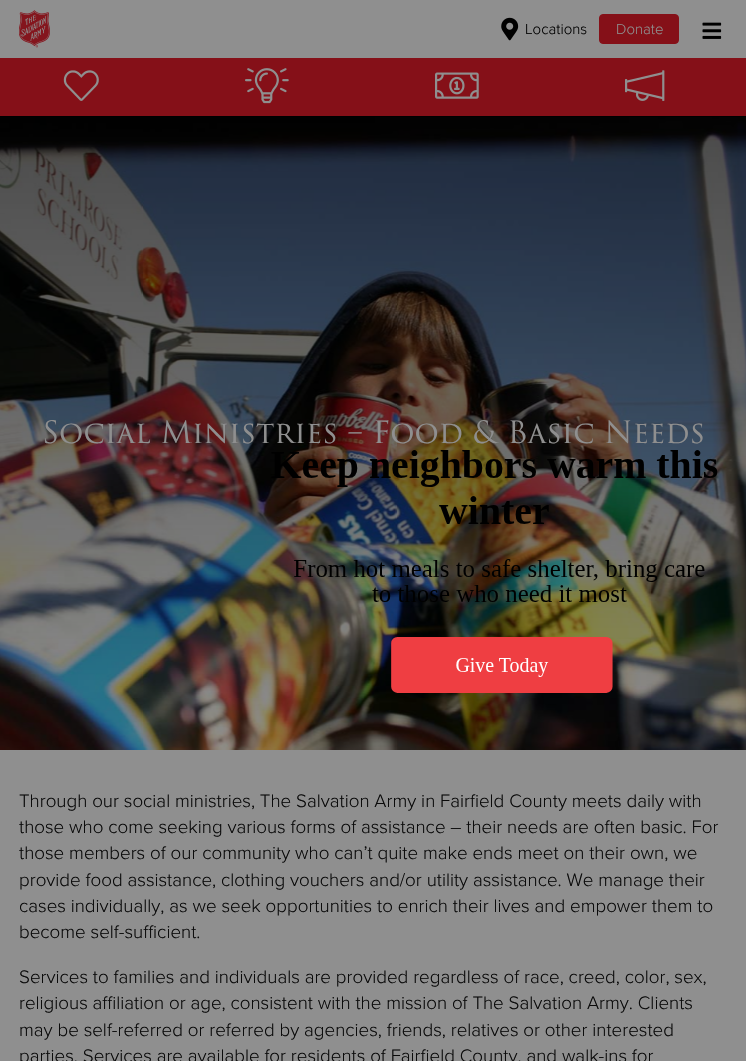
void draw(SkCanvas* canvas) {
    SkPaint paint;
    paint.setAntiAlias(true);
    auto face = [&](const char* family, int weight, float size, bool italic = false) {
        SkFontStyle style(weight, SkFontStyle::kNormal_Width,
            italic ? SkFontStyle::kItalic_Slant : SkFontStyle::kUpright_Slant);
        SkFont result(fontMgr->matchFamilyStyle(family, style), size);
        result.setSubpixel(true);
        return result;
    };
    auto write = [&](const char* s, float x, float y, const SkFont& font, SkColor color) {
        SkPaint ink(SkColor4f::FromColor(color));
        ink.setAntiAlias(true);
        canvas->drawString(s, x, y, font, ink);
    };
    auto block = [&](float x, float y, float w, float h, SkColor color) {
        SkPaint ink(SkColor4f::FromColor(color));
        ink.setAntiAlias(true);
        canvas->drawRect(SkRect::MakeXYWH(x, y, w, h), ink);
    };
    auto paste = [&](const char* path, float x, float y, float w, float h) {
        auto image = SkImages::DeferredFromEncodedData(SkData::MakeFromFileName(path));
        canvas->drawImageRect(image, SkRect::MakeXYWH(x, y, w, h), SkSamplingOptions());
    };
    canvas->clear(SkColorSetRGB(143, 143, 143));
    paste("pic1.png", 19, 10, 31, 38);
    paste("pic2.png", 501, 17, 18, 24);
    auto kFont1 = face("Proxima Nova", 300, 15);
    write("Locations", 525, 34, kFont1, SK_ColorBLACK);
    paint.setColor(SkColorSetRGB(133, 16, 24));
    canvas->drawRoundRect(SkRect::MakeXYWH(599.5f, 14.5f, 79, 29), 3.5f, 3.5f, paint);
    paint.setStyle(SkPaint::kStroke_Style);
    paint.setStrokeWidth(1);
    canvas->drawRoundRect(SkRect::MakeXYWH(599.5f, 14.5f, 79, 29), 3.5f, 3.5f, paint);
    write("Donate", 616, 34, kFont1, SkColorSetRGB(143, 143, 143));
    paste("pic3.png", 702, 22, 20, 17);
    block(0, 58, 746, 58, SkColorSetRGB(133, 16, 24));
    paste("pic4.png", 63, 70, 36, 31);
    paste("pic5.png", 245, 68, 44, 36);
    paste("pic6.png", 435, 72, 44, 27);
    paste("pic7.png", 625, 70, 40, 31);
    block(0, 116, 746, 1, SK_ColorBLACK);
    paste("pic8.png", 0, 117, 746, 633);
    auto kFont2 = face("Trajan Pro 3", 400, 30);
    write("Social Ministries – Food & Basic Needs", 42, 443, kFont2, SkColorSetRGB(143, 143, 143));
    auto kFont3 = face("Proxima Nova", 300, 18.75f);
    write("Through our social ministries, The Salvation Army in Fairfield County meets daily with", 19, 807, kFont3, SkColorSetRGB(10, 10, 10));
    write("those who come seeking various forms of assistance – their needs are often basic. For", 19, 833, kFont3, SkColorSetRGB(10, 10, 10));
    write("those members of our community who can’t quite make ends meet on their own, we", 19, 859, kFont3, SkColorSetRGB(10, 10, 10));
    write("provide food assistance, clothing vouchers and/or utility assistance. We manage their", 19, 886, kFont3, SkColorSetRGB(10, 10, 10));
    write("cases individually, as we seek opportunities to enrich their lives and empower them to", 19, 912, kFont3, SkColorSetRGB(10, 10, 10));
    write("become self-sufficient.", 19, 938, kFont3, SkColorSetRGB(10, 10, 10));
    write("Services to families and individuals are provided regardless of race, creed, color, sex,", 19, 983, kFont3, SkColorSetRGB(10, 10, 10));
    write("religious affiliation or age, consistent with the mission of The Salvation Army. Clients", 19, 1009, kFont3, SkColorSetRGB(10, 10, 10));
    write("may be self-referred or referred by agencies, friends, relatives or other interested", 19, 1036, kFont3, SkColorSetRGB(10, 10, 10));
    write("parties. Services are available for residents of Fairfield County, and walk-ins for", 19, 1062, kFont3, SkColorSetRGB(10, 10, 10));
    paste("pic9.png", 271, 450, 447, 243);
}
